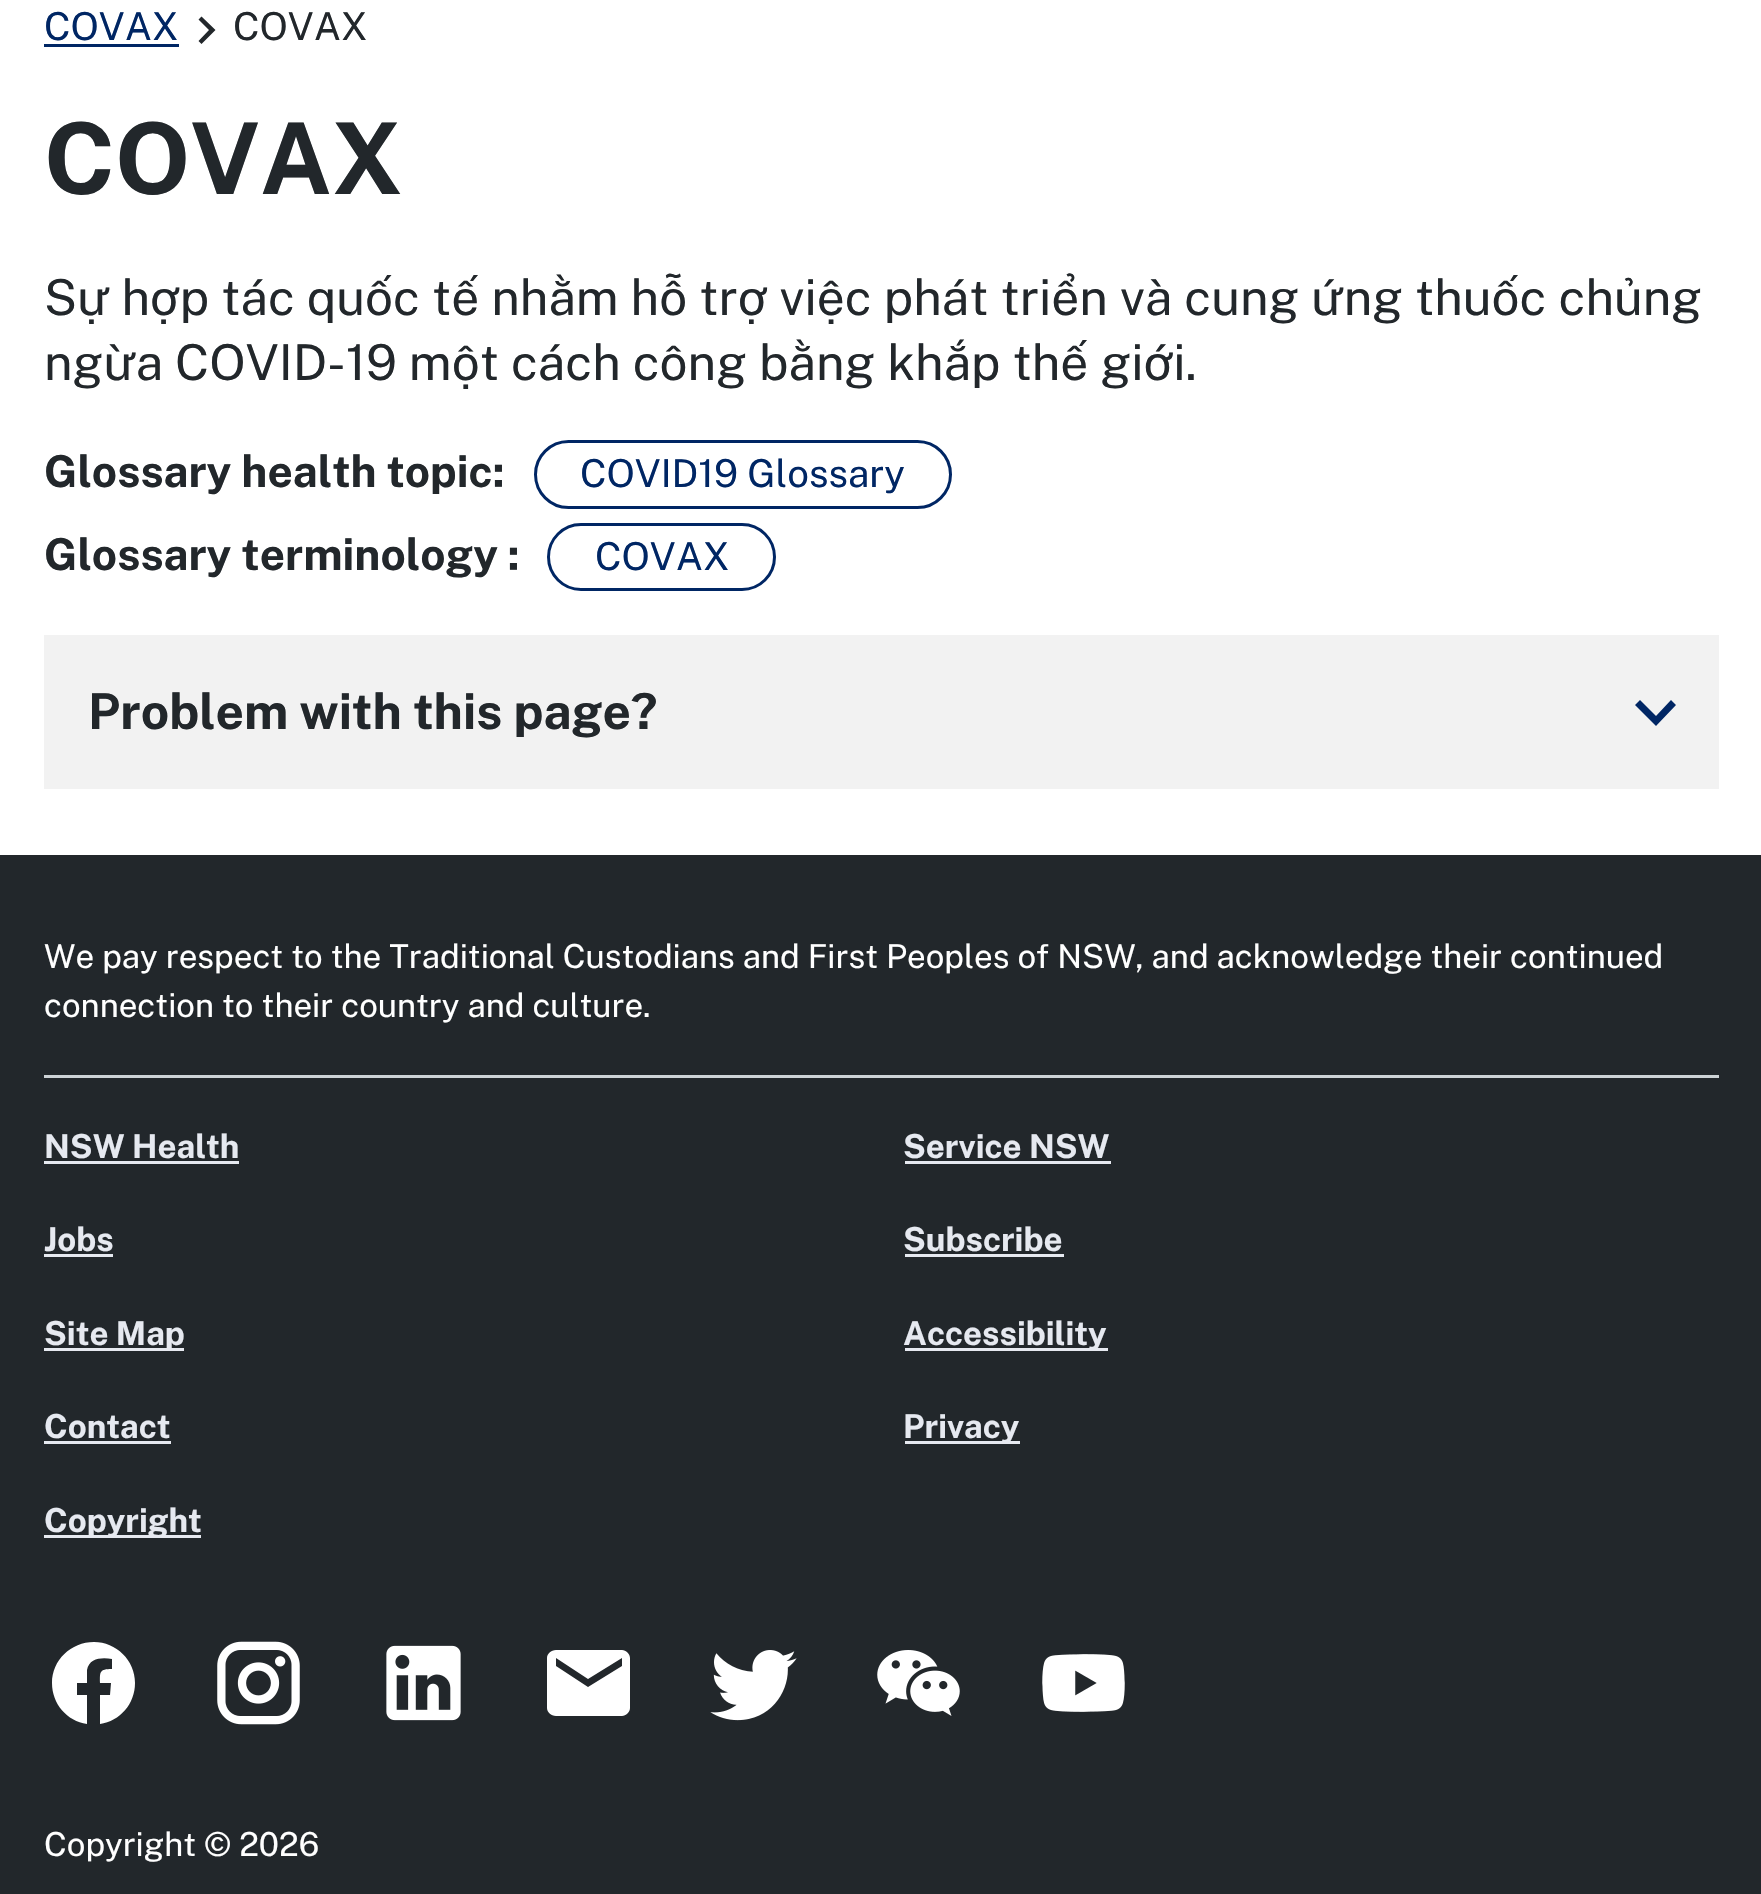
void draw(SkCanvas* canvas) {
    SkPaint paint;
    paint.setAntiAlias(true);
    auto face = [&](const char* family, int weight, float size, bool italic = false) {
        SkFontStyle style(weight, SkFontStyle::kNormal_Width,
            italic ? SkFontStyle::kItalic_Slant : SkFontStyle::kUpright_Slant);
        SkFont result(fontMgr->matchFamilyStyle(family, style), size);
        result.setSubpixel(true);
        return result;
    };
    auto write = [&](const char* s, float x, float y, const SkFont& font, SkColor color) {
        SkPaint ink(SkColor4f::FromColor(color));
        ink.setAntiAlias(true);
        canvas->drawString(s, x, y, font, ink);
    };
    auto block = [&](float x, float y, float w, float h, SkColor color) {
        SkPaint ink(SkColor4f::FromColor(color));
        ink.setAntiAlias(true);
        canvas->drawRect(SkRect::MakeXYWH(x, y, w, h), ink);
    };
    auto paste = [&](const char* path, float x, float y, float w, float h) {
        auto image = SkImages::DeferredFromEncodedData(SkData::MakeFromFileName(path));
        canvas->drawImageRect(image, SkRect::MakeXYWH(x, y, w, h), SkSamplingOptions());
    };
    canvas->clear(SK_ColorWHITE);
    auto kFont1 = face("Public Sans", 100, 38.5f);
    write("COVAX", 44, 40, kFont1, SkColorSetRGB(0, 38, 100));
    block(44, 44, 135, 3, SkColorSetRGB(0, 38, 100));
    paint.setColor(SkColorSetRGB(34, 39, 43));
    canvas->drawPath(SkPathBuilder().moveTo(198.5f, 41).lineTo(209, 30).lineTo(198.5f, 19.5f).lineTo(201.5f, 16.5f).lineTo(215.5f, 30).lineTo(201.5f, 44).close().detach(), paint);
    write("COVAX", 233, 40, kFont1, SkColorSetRGB(34, 39, 43));
    auto kFont2 = face("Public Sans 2", 100, 99);
    write("COVAX", 44, 194, kFont2, SkColorSetRGB(34, 39, 43));
    auto kFont3 = face("Public Sans", 100, 49.5f);
    write("Sự hợp tác quốc tế nhằm hỗ trợ việc phát triển và cung ứng thuốc chủng", 44, 315, kFont3, SkColorSetRGB(34, 39, 43));
    write("ngừa COVID-19 một cách công bằng khắp thế giới.", 44, 380, kFont3, SkColorSetRGB(34, 39, 43));
    auto kFont4 = face("Public Sans 2", 100, 44);
    write("Glossary health topic:", 44, 487, kFont4, SkColorSetRGB(34, 39, 43));
    paint.setStyle(SkPaint::kStroke_Style);
    paint.setStrokeWidth(3);
    paint.setColor(SkColorSetRGB(0, 38, 100));
    canvas->drawRoundRect(SkRect::MakeXYWH(535.5f, 441.5f, 415, 66), 33, 33, paint);
    write("COVID19 Glossary", 580, 487, kFont1, SkColorSetRGB(0, 38, 100));
    write("Glossary terminology :", 44, 570, kFont4, SkColorSetRGB(34, 39, 43));
    canvas->drawRoundRect(SkRect::MakeXYWH(548.5f, 524.5f, 226, 65), 32.5f, 32.5f, paint);
    write("COVAX", 595, 570, kFont1, SkColorSetRGB(0, 38, 100));
    block(44, 635, 1675, 154, SkColorSetRGB(242, 242, 242));
    auto kFont5 = face("Public Sans 2", 100, 49.5f);
    write("Problem with this page?", 88, 729, kFont5, SkColorSetRGB(34, 39, 43));
    paint.setStyle(SkPaint::kFill_Style);
    canvas->drawPath(SkPathBuilder().moveTo(1640, 700).lineTo(1656, 716).lineTo(1671, 700).lineTo(1676, 705).lineTo(1656, 726).lineTo(1635, 705).close().detach(), paint);
    block(0, 855, 1761, 1039, SkColorSetRGB(34, 39, 43));
    auto kFont6 = face("Public Sans", 100, 33);
    write("We pay respect to the Traditional Custodians and First Peoples of NSW, and acknowledge their continued", 44, 968, kFont6, SK_ColorWHITE);
    write("connection to their country and culture.", 44, 1017, kFont6, SK_ColorWHITE);
    block(44, 1075, 1675, 3, SkColorSetRGB(205, 211, 214));
    auto kFont7 = face("Public Sans 2", 100, 33);
    write("NSW Health", 44, 1158, kFont7, SkColorSetRGB(230, 233, 240));
    block(44, 1161, 195, 3, SkColorSetRGB(230, 233, 240));
    write("Service NSW", 903, 1158, kFont7, SkColorSetRGB(230, 233, 240));
    block(905, 1161, 206, 3, SkColorSetRGB(230, 233, 240));
    write("Jobs", 44, 1251, kFont7, SkColorSetRGB(230, 233, 240));
    block(44, 1254, 69, 3, SkColorSetRGB(230, 233, 240));
    write("Subscribe", 903, 1251, kFont7, SkColorSetRGB(230, 233, 240));
    block(905, 1254, 159, 3, SkColorSetRGB(230, 233, 240));
    block(44, 1348, 140, 3, SkColorSetRGB(230, 233, 240));
    write("Site Map", 44, 1345, kFont7, SkColorSetRGB(230, 233, 240));
    block(905, 1348, 203, 3, SkColorSetRGB(230, 233, 240));
    write("Accessibility", 903, 1345, kFont7, SkColorSetRGB(230, 233, 240));
    write("Contact", 44, 1438, kFont7, SkColorSetRGB(230, 233, 240));
    block(44, 1441, 127, 3, SkColorSetRGB(230, 233, 240));
    block(905, 1441, 115, 3, SkColorSetRGB(230, 233, 240));
    write("Privacy", 903, 1438, kFont7, SkColorSetRGB(230, 233, 240));
    block(44, 1535, 157, 3, SkColorSetRGB(230, 233, 240));
    write("Copyright", 44, 1532, kFont7, SkColorSetRGB(230, 233, 240));
    paint.setColor(SK_ColorWHITE);
    canvas->drawPath(SkPathBuilder().moveTo(94, 1642).cubicTo(71, 1642, 52, 1660, 52, 1683).cubicTo(52, 1704, 67, 1721, 87, 1724).lineTo(87, 1695).lineTo(77, 1695).lineTo(77, 1683).lineTo(87, 1683).lineTo(87, 1670).cubicTo(89, 1658, 102, 1657, 112, 1659).lineTo(112, 1669).cubicTo(99, 1669, 100, 1672, 100, 1683).lineTo(111, 1683).lineTo(110, 1695).lineTo(100, 1695).lineTo(100, 1724).cubicTo(120, 1721, 135, 1704, 135, 1683).cubicTo(135, 1660, 116, 1642, 94, 1642).close().detach(), paint);
    paste("pic1.png", 217, 1641, 83, 84);
    paste("pic2.png", 386, 1645, 75, 76);
    canvas->drawPath(SkPathBuilder().moveTo(622, 1666).lineTo(588, 1687).lineTo(556, 1666).lineTo(556, 1658).lineTo(588, 1679).lineTo(622, 1658).moveTo(622, 1650).lineTo(556, 1650).cubicTo(551, 1650, 547, 1654, 547, 1658).lineTo(547, 1708).cubicTo(547, 1712, 551, 1716, 556, 1716).lineTo(622, 1716).cubicTo(626, 1716, 630, 1712, 630, 1708).lineTo(630, 1658).cubicTo(630, 1654, 626, 1650, 622, 1650).close().detach(), paint);
    paste("pic3.png", 710, 1650, 87, 71);
    paste("pic4.png", 877, 1650, 83, 66);
    paste("pic5.png", 1042, 1654, 83, 58);
    write("Copyright © 2026", 44, 1856, kFont6, SK_ColorWHITE);
}
